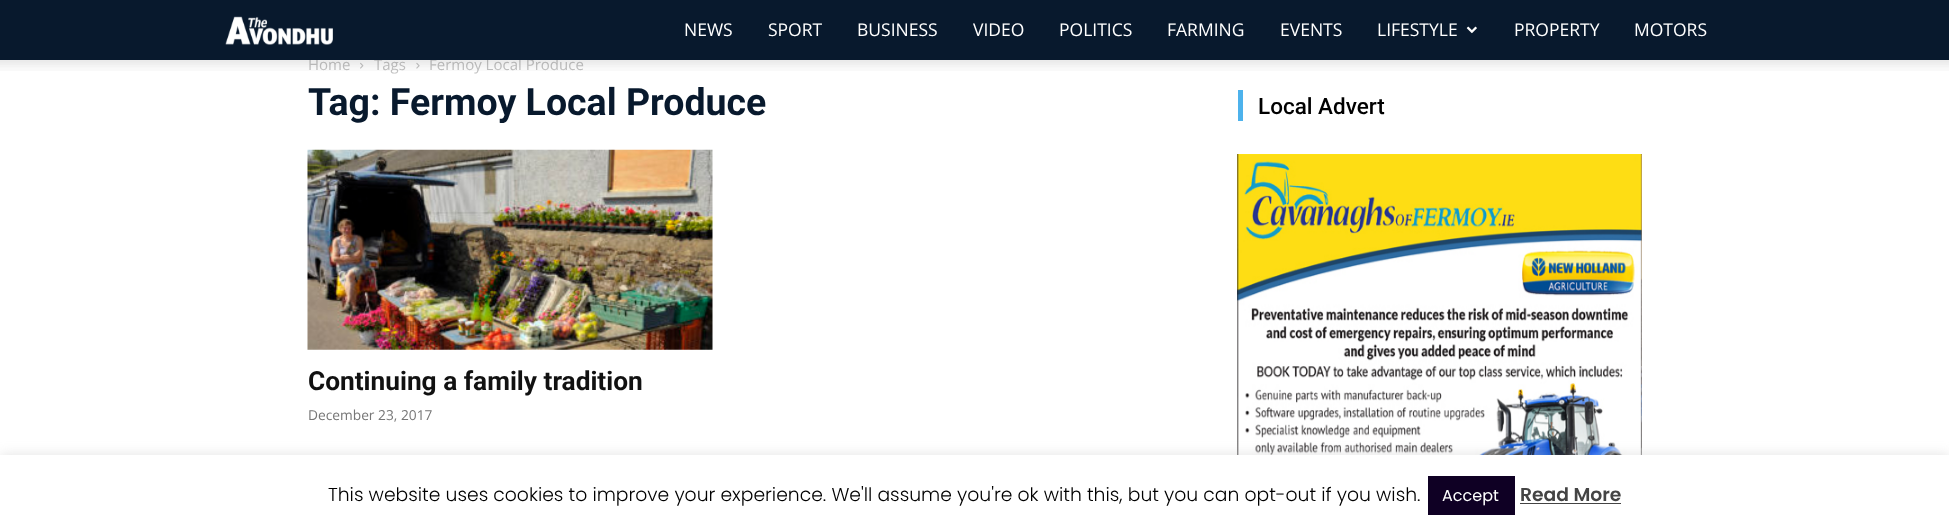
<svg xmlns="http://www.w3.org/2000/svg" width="1949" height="530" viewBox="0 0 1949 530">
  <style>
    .t1 { font: 15px Open Sans; fill: #c3c3c3; }
    .t2 { font: 17.5px Open Sans; fill: #fff; }
    .t3 { font: bold 37.5px Roboto; fill: #08192d; }
    .t4 { font: bold 26.25px Roboto; fill: #111; }
    .t5 { font: 13.75px Open Sans; fill: #767676; }
    .t6 { font: 500 22.5px Roboto; fill: #000; }
    .t7 { font: 300 18.75px Poppins; fill: #000; }
    .t8 { font: 16px Poppins; fill: #fff; }
    .t9 { font: 600 18.75px Poppins; fill: #444; }
  </style>
  <rect width="100%" height="100%" fill="#fff"/>
  <text x="308" y="70" class="t1">Home</text>
  <text x="374" y="70" class="t1">Tags</text>
  <text x="429" y="70" class="t1">Fermoy Local Produce</text>
  <rect x="0" y="0" width="1949" height="60" fill="#08192d"/>
  <image x="225" y="16" width="108" height="29" href="images/1.png"/>
  <text x="684" y="36" class="t2">NEWS</text>
  <text x="768" y="36" class="t2">SPORT</text>
  <text x="857" y="36" class="t2">BUSINESS</text>
  <text x="973" y="36" class="t2">VIDEO</text>
  <text x="1059" y="36" class="t2">POLITICS</text>
  <text x="1167" y="36" class="t2">FARMING</text>
  <text x="1280" y="36" class="t2">EVENTS</text>
  <text x="1377" y="36" class="t2">LIFESTYLE</text>
  <image x="1466" y="26" width="11" height="8" href="images/2.png"/>
  <text x="1514" y="36" class="t2">PROPERTY</text>
  <text x="1634" y="36" class="t2">MOTORS</text>
  <image x="360" y="62" width="4" height="7" href="images/4.png"/>
  <image x="416" y="62" width="4" height="7" href="images/5.png"/>
  <image x="0" y="60" width="1949" height="11" href="images/3.png"/>
  <text x="308" y="115" class="t3">Tag: Fermoy Local Produce</text>
  <image x="307" y="149" width="406" height="201" href="images/6.png"/>
  <text x="308" y="390" class="t4">Continuing a family tradition</text>
  <text x="308" y="420" class="t5">December 23, 2017</text>
  <rect x="1238" y="90" width="5" height="31" fill="#4db2ec"/>
  <text x="1258" y="114" class="t6">Local Advert</text>
  <image x="1237" y="154" width="405" height="301" href="images/7.png"/>
  <rect x="0" y="454" width="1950" height="75" fill="#acabab4d" filter="blur(6px)"/>
  <rect x="0" y="455" width="1949" height="75" fill="#fff"/>
  <text x="328" y="501" class="t7">This website uses cookies to improve your experience. We'll assume you're ok with this, but you can opt-out if you wish.</text>
  <rect x="1428" y="476" width="87" height="39" fill="#0f0024"/>
  <text x="1442" y="501" class="t8">Accept</text>
  <text x="1520" y="501" class="t9">Read More</text>
  <rect x="1520" y="503" width="101" height="1" fill="#444"/>
</svg>
